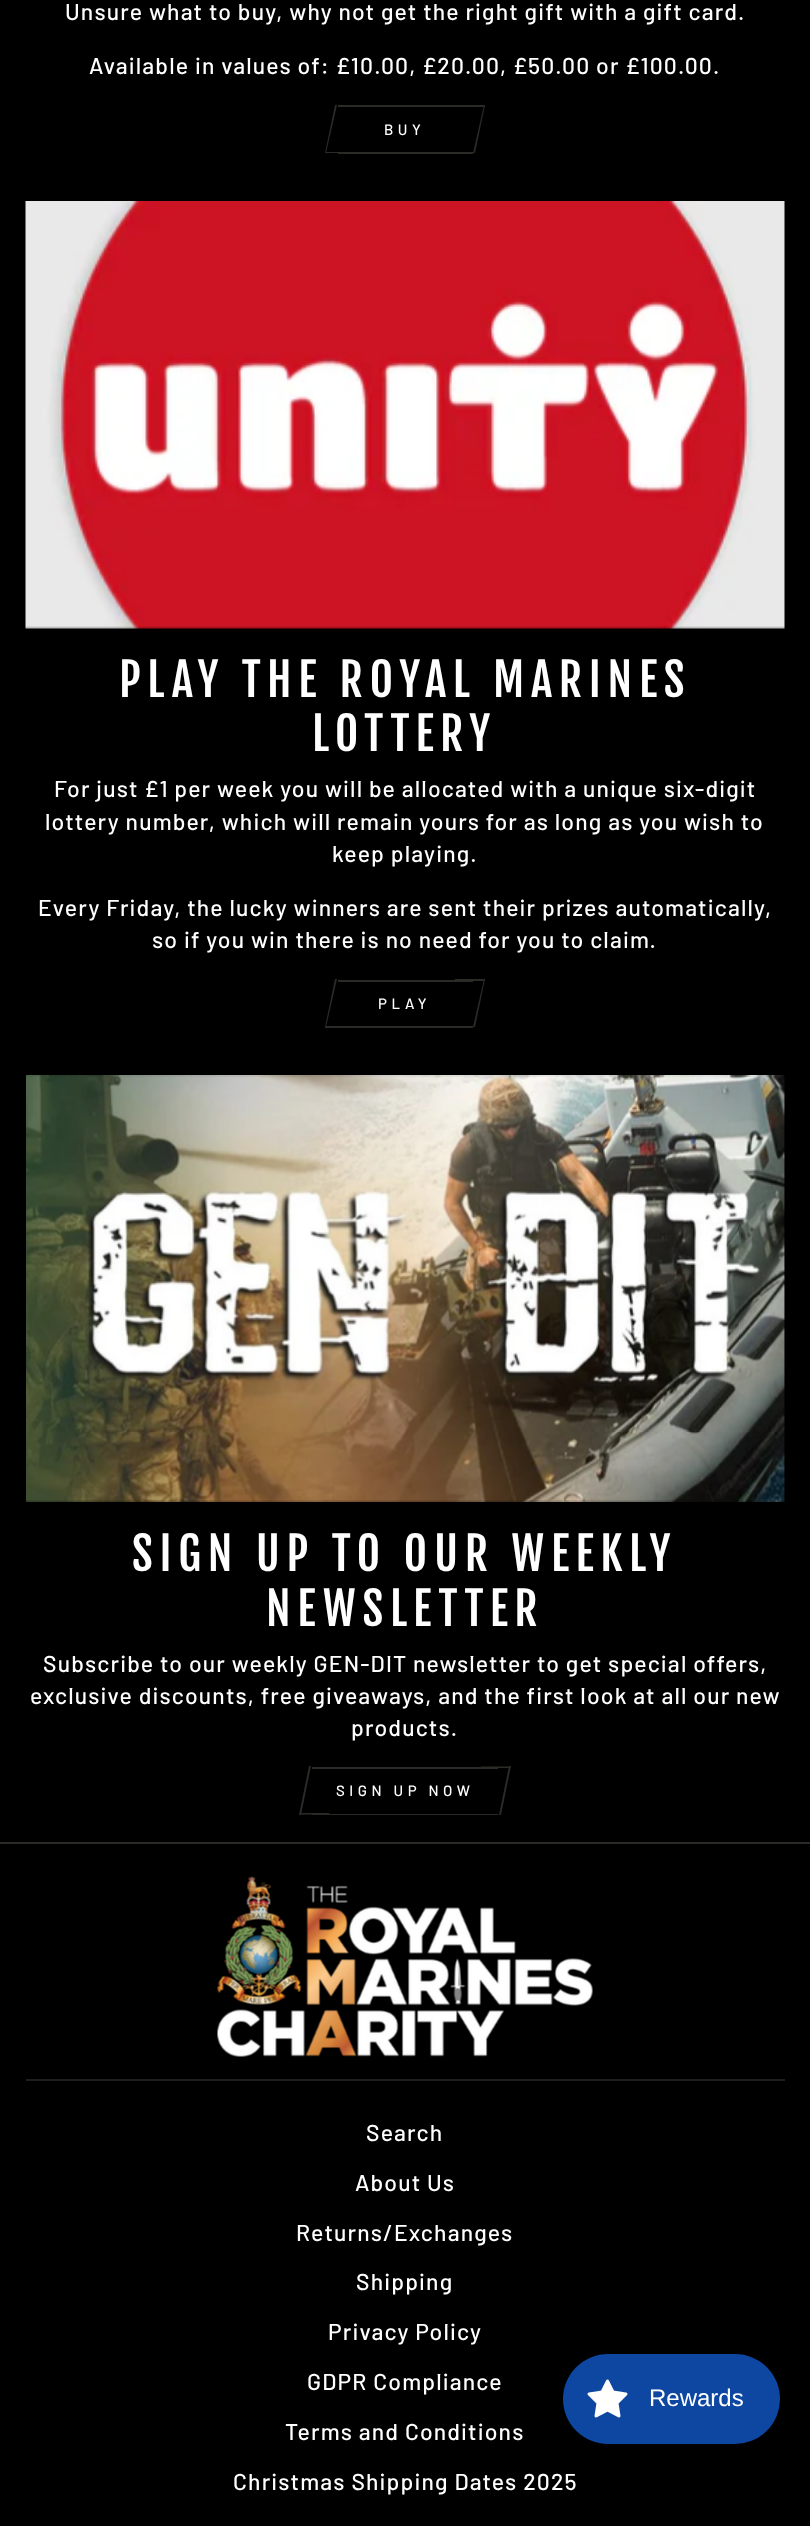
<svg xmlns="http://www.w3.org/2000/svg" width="810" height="2526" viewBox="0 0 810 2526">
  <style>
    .t1 { font: 500 22.95px Barlow; letter-spacing: 1.15px; fill: #fff; }
    .t2 { font: 500 15px Barlow; letter-spacing: 4.5px; fill: #fff; }
    .t3 { font: 45.25px Fjalla One; letter-spacing: 6.75px; fill: #fff; }
    .t4 { font: 24px Liberation Sans; fill: #fff; }
  </style>
  <rect width="100%" height="100%" fill="#000"/>
  <text x="65" y="20" class="t1">Unsure what to buy, why not get the right gift with a gift card.</text>
  <text x="89" y="74" class="t1">Available in values of: £10.00, £20.00, £50.00 or £100.00.</text>
  <rect x="338" y="105" width="147" height="2" fill="#2b2a27"/>
  <rect x="338" y="152" width="135" height="2" fill="#2b2a27"/>
  <rect x="325" y="152" width="13" height="1" fill="#2b2a27"/>
  <path d="M335 105H337L326 153H325Z" fill="#2b2a27"/>
  <text x="384" y="135" class="t2">BUY</text>
  <path d="M484 105H485L475 153H473Z" fill="#2b2a27"/>
  <image x="25" y="201" width="760" height="428" href="images/1.png"/>
  <text x="119" y="697" class="t3">PLAY THE ROYAL MARINES</text>
  <text x="312" y="751" class="t3">LOTTERY</text>
  <text x="54" y="797" class="t1">For just £1 per week you will be allocated with a unique six-digit</text>
  <text x="45" y="830" class="t1">lottery number, which will remain yours for as long as you wish to</text>
  <text x="332" y="862" class="t1">keep playing.</text>
  <text x="38" y="916" class="t1">Every Friday, the lucky winners are sent their prizes automatically,</text>
  <text x="152" y="948" class="t1">so if you win there is no need for you to claim.</text>
  <rect x="338" y="980" width="135" height="2" fill="#2b2a27"/>
  <rect x="325" y="1026" width="148" height="2" fill="#2b2a27"/>
  <path d="M335 979H337L326 1027H325Z" fill="#2b2a27"/>
  <text x="378" y="1009" class="t2">PLAY</text>
  <rect x="455" y="979" width="30" height="2" fill="#2b2a27"/>
  <path d="M484 979H485L475 1027H473Z" fill="#2b2a27"/>
  <image x="26" y="1075" width="759" height="427" href="images/2.png"/>
  <text x="132" y="1571" class="t3">SIGN UP TO OUR WEEKLY</text>
  <text x="266" y="1626" class="t3">NEWSLETTER</text>
  <text x="43" y="1672" class="t1">Subscribe to our weekly GEN-DIT newsletter to get special offers,</text>
  <text x="30" y="1704" class="t1">exclusive discounts, free giveaways, and the first look at all our new</text>
  <text x="351" y="1736" class="t1">products.</text>
  <rect x="312" y="1767" width="186" height="2" fill="#2b2a27"/>
  <rect x="312" y="1814" width="186" height="1" fill="#2b2a27"/>
  <path d="M299.5 1813H329.5L329 1814.5H299Z" fill="#2b2a27"/>
  <path d="M309 1766H311L301 1815H299Z" fill="#2b2a27"/>
  <text x="336" y="1796" class="t2">SIGN UP NOW</text>
  <path d="M481 1766.5H511L510.5 1768H480.5Z" fill="#2b2a27"/>
  <path d="M509 1766H511L501 1815H499Z" fill="#2b2a27"/>
  <rect x="0" y="1842" width="810" height="2" fill="#2b2a27"/>
  <image x="217" y="1876" width="376" height="181" href="images/3.png"/>
  <rect x="26" y="2079" width="759" height="2" fill="#1f1f1f"/>
  <text x="366" y="2141" class="t1">Search</text>
  <text x="355" y="2191" class="t1">About Us</text>
  <text x="296" y="2241" class="t1">Returns/Exchanges</text>
  <text x="356" y="2290" class="t1">Shipping</text>
  <text x="328" y="2340" class="t1">Privacy Policy</text>
  <text x="307" y="2390" class="t1">GDPR Compliance</text>
  <text x="285" y="2440" class="t1">Terms and Conditions</text>
  <text x="233" y="2490" class="t1">Christmas Shipping Dates 2025</text>
  <rect x="563" y="2354" width="217" height="90" rx="45" fill="#0d47a1"/>
  <image x="587" y="2379" width="41" height="39" href="images/4.png"/>
  <text x="649" y="2406" class="t4">Rewards</text>
</svg>
